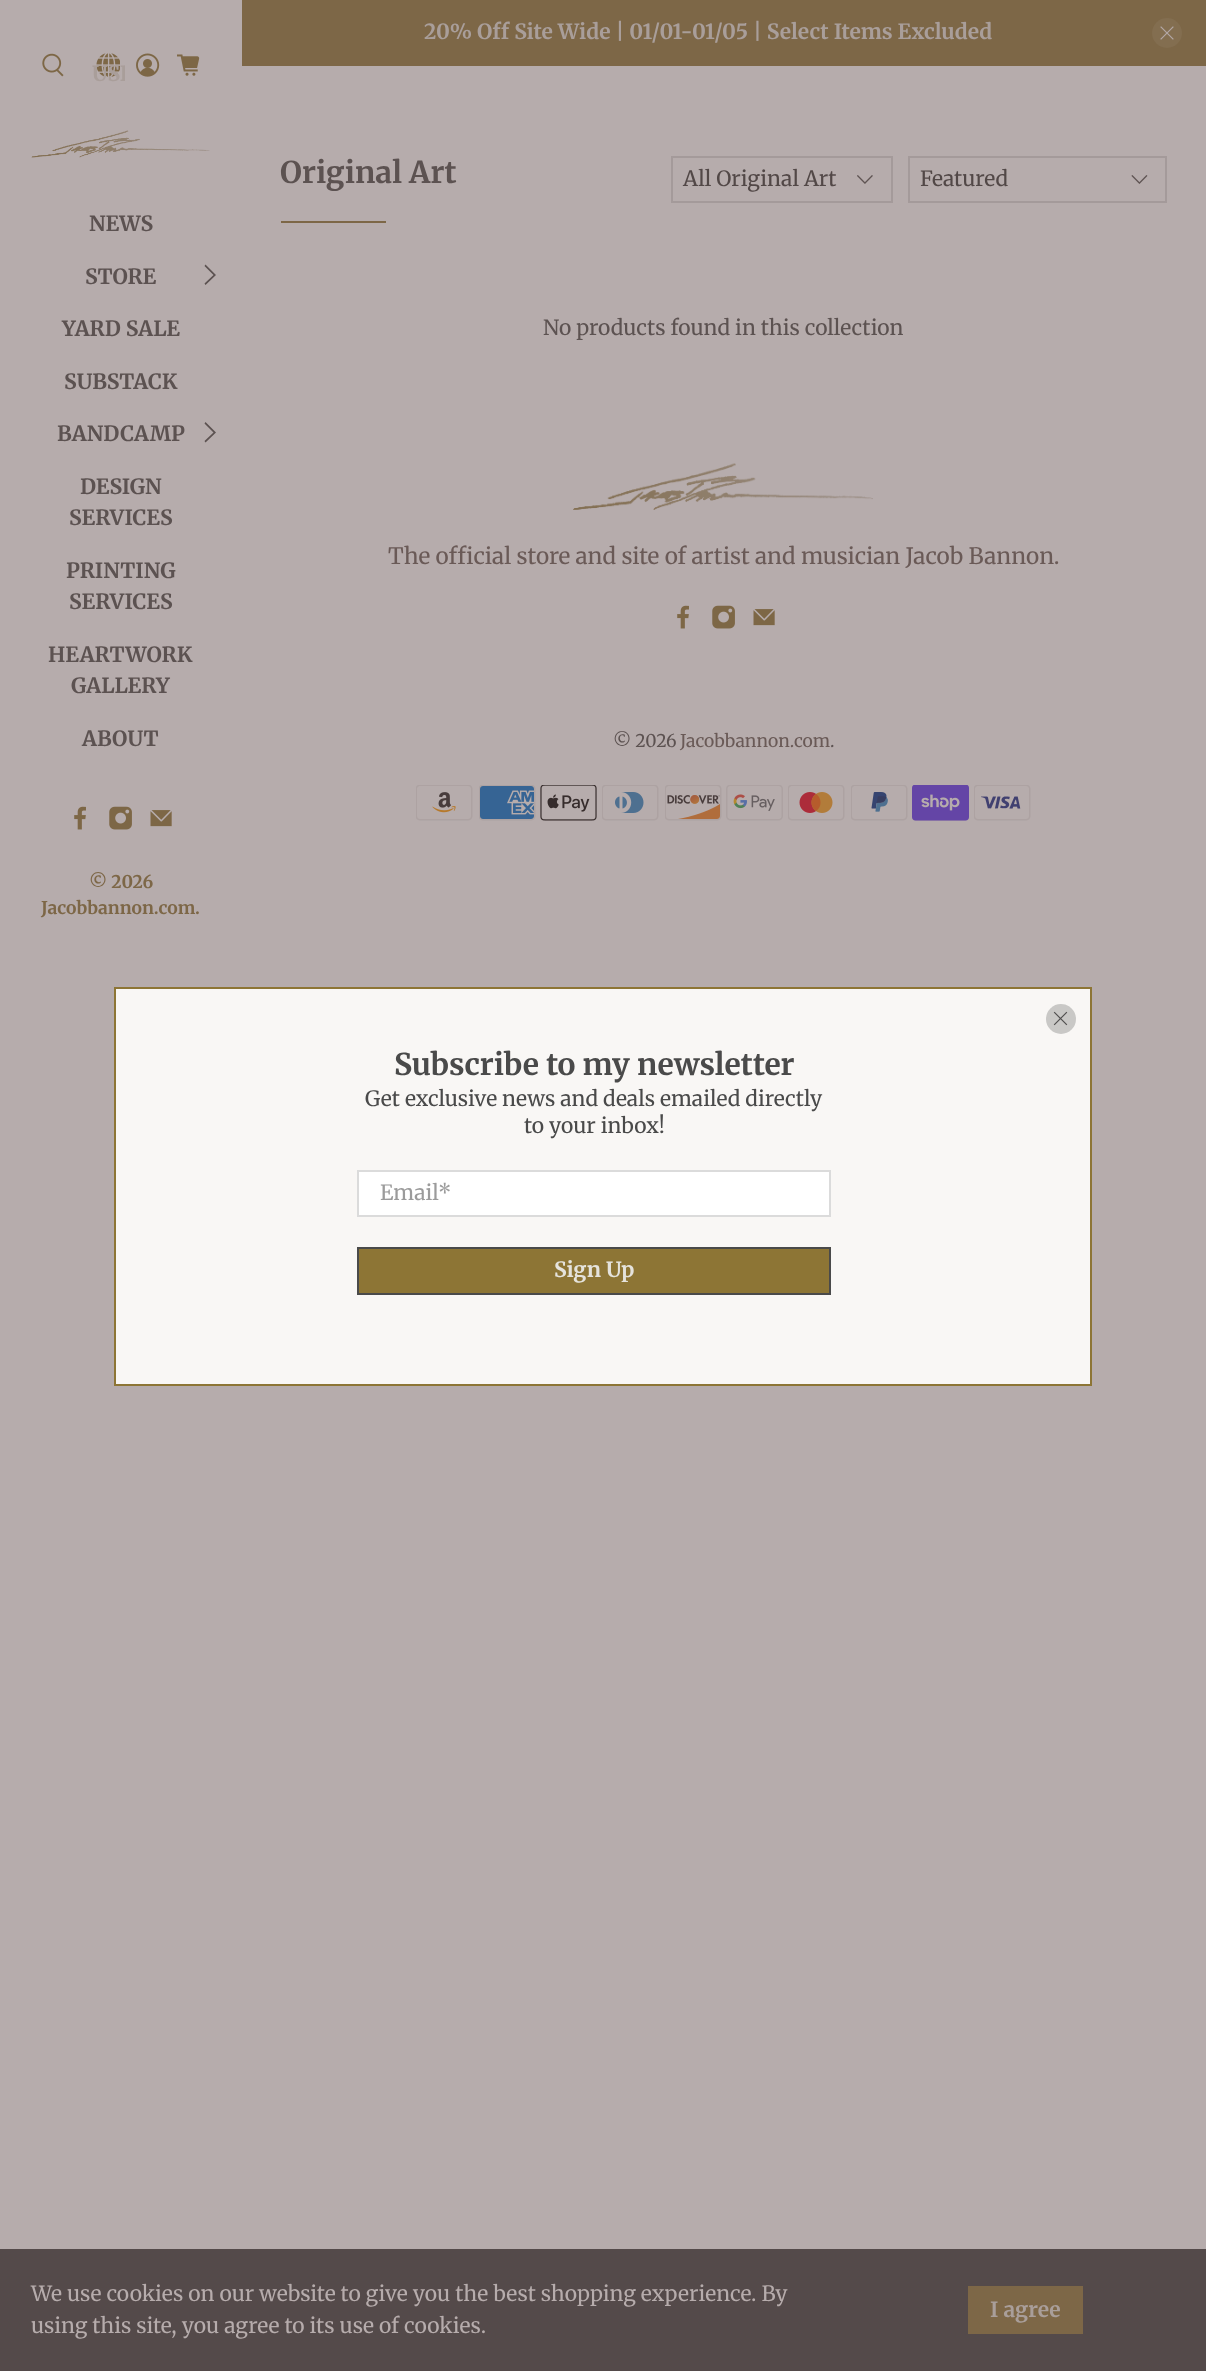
<svg xmlns="http://www.w3.org/2000/svg" width="1206" height="2371" viewBox="0 0 1206 2371">
  <style>
    .t1 { font: bold 21px Merriweather; fill: #a99e9a; }
    .t2 { font: bold 21px Merriweather; fill: #5c5251; }
    .t3 { font: bold 17.5px Merriweather; fill: #7d6747; }
    .t4 { font: bold 30px Merriweather; fill: #5c5251; }
    .t5 { font: 21px Merriweather; fill: #524847; }
    .t6 { font: 21px Merriweather; fill: #5c5251; }
    .t7 { font: 22.5px Merriweather; fill: #6a5a57; }
    .t8 { font: 17.5px Merriweather; fill: #5c5251; }
    .t9 { font: 17.5px Merriweather; fill: #6a5a57; }
    .t10 { font: bold 30px Merriweather; fill: #4a4a4a; }
    .t11 { font: 21px Merriweather; fill: #4a4a4a; }
    .t12 { font: 21px Merriweather; fill: #9b9b9b; }
    .t13 { font: bold 21px Merriweather; fill: #e5e3dc; }
    .t14 { font: 21px Merriweather; fill: #b6acac; }
  </style>
  <defs>
    <clipPath id="clip1"><rect x="92" y="59" width="33" height="31"/></clipPath>
  </defs>
  <rect width="100%" height="100%" fill="#b6acac"/>
  <rect x="242" y="0" width="964" height="66" fill="#7d6747"/>
  <text x="424" y="39" class="t1">20% Off Site Wide | 01/01-01/05 | Select Items Excluded</text>
  <circle cx="1167" cy="33" r="15" fill="#836e50"/>
  <image x="1160" y="26" width="14" height="14" href="images/1.png"/>
  <image x="42" y="53" width="22" height="24" href="images/2.png"/>
  <image x="96" y="53" width="24" height="24" href="images/3.png"/>
  <g clip-path="url(#clip1)">
    <text x="92" y="81" class="t1">USD</text>
  </g>
  <image x="136" y="53" width="24" height="24" href="images/4.png"/>
  <image x="177" y="54" width="23" height="22" href="images/5.png"/>
  <image x="31" y="130" width="179" height="28" href="images/6.png"/>
  <text x="89" y="231" class="t2">NEWS</text>
  <text x="85" y="284" class="t2">STORE</text>
  <path d="M216 275L205.5 285L204.5 283.5L213.5 275L204.5 266L205.5 264.5Z" fill="#5c5251"/>
  <text x="62" y="336" class="t2">YARD SALE</text>
  <text x="64" y="389" class="t2">SUBSTACK</text>
  <text x="57" y="441" class="t2">BANDCAMP</text>
  <path d="M216 432.5L205.5 442.5L204.5 441L213.5 432.5L204.5 423.5L205.5 422Z" fill="#5c5251"/>
  <text x="80" y="494" class="t2">DESIGN</text>
  <text x="69" y="525" class="t2">SERVICES</text>
  <text x="66" y="578" class="t2">PRINTING</text>
  <text x="69" y="609" class="t2">SERVICES</text>
  <text x="48" y="662" class="t2">HEARTWORK</text>
  <text x="71" y="693" class="t2">GALLERY</text>
  <text x="82" y="746" class="t2">ABOUT</text>
  <image x="74" y="806" width="12" height="24" href="images/7.png"/>
  <image x="109" y="806" width="23" height="24" href="images/8.png"/>
  <image x="150" y="810" width="22" height="17" href="images/9.png"/>
  <text x="89" y="888" class="t3">© 2026</text>
  <text x="41" y="914" class="t3">Jacobbannon.com</text>
  <text x="195" y="914" class="t3">.</text>
  <text x="280" y="183" class="t4">Original Art</text>
  <rect x="281" y="221" width="105" height="2" fill="#7d6747"/>
  <rect x="672" y="157" width="220" height="45" fill="none" stroke="#a49a9a" stroke-width="2"/>
  <text x="683" y="186" class="t5">All Original Art</text>
  <image x="857" y="175" width="16" height="9" href="images/10.png"/>
  <rect x="909" y="157" width="257" height="45" fill="none" stroke="#a49a9a" stroke-width="2"/>
  <text x="920" y="186" class="t5">Featured</text>
  <image x="1131" y="175" width="17" height="9" href="images/11.png"/>
  <text x="543" y="335" class="t6">No products found in this collection</text>
  <image x="573" y="463" width="300" height="47" href="images/12.png"/>
  <text x="388" y="564" class="t7">The official store and site of artist and musician Jacob Bannon.</text>
  <image x="677" y="605" width="12" height="24" href="images/7.png"/>
  <image x="712" y="605" width="23" height="24" href="images/8.png"/>
  <image x="753" y="609" width="22" height="17" href="images/9.png"/>
  <text x="613" y="747" class="t8">© 2026</text>
  <text x="680" y="747" class="t9">Jacobbannon.com</text>
  <text x="830" y="747" class="t8">.</text>
  <image x="416" y="785" width="57" height="36" href="images/13.png"/>
  <image x="479" y="785" width="57" height="36" href="images/14.png"/>
  <image x="540" y="785" width="57" height="36" href="images/15.png"/>
  <image x="602" y="785" width="57" height="36" href="images/16.png"/>
  <image x="665" y="785" width="57" height="36" href="images/17.png"/>
  <image x="726" y="785" width="57" height="36" href="images/18.png"/>
  <image x="788" y="785" width="57" height="36" href="images/19.png"/>
  <image x="851" y="785" width="57" height="36" href="images/20.png"/>
  <image x="912" y="785" width="57" height="36" href="images/21.png"/>
  <image x="974" y="785" width="57" height="36" href="images/22.png"/>
  <rect x="115" y="988" width="976" height="397" fill="#f9f7f5" stroke="#8d7535" stroke-width="2"/>
  <circle cx="1061" cy="1019" r="15" fill="#c9c8c6"/>
  <image x="1053" y="1011" width="15" height="15" href="images/23.png"/>
  <text x="394" y="1075" class="t10">Subscribe to my newsletter</text>
  <text x="365" y="1106" class="t11">Get exclusive news and deals emailed directly</text>
  <text x="524" y="1133" class="t11">to your inbox!</text>
  <rect x="358" y="1171" width="472" height="45" fill="#fff" stroke="#dbdbdb" stroke-width="2"/>
  <text x="380" y="1200" class="t12">Email*</text>
  <rect x="358" y="1248" width="472" height="46" fill="#8d7535" stroke="#4a4a4a" stroke-width="2"/>
  <text x="554" y="1277" class="t13">Sign Up</text>
  <rect x="0" y="2249" width="1206" height="122" fill="#544a4a"/>
  <text x="31" y="2301" class="t14">We use cookies on our website to give you the best shopping experience. By</text>
  <text x="31" y="2333" class="t14">using this site, you agree to its use of cookies.</text>
  <rect x="968" y="2286" width="115" height="48" fill="#7d6747"/>
  <text x="990" y="2317" class="t1">I agree</text>
</svg>
